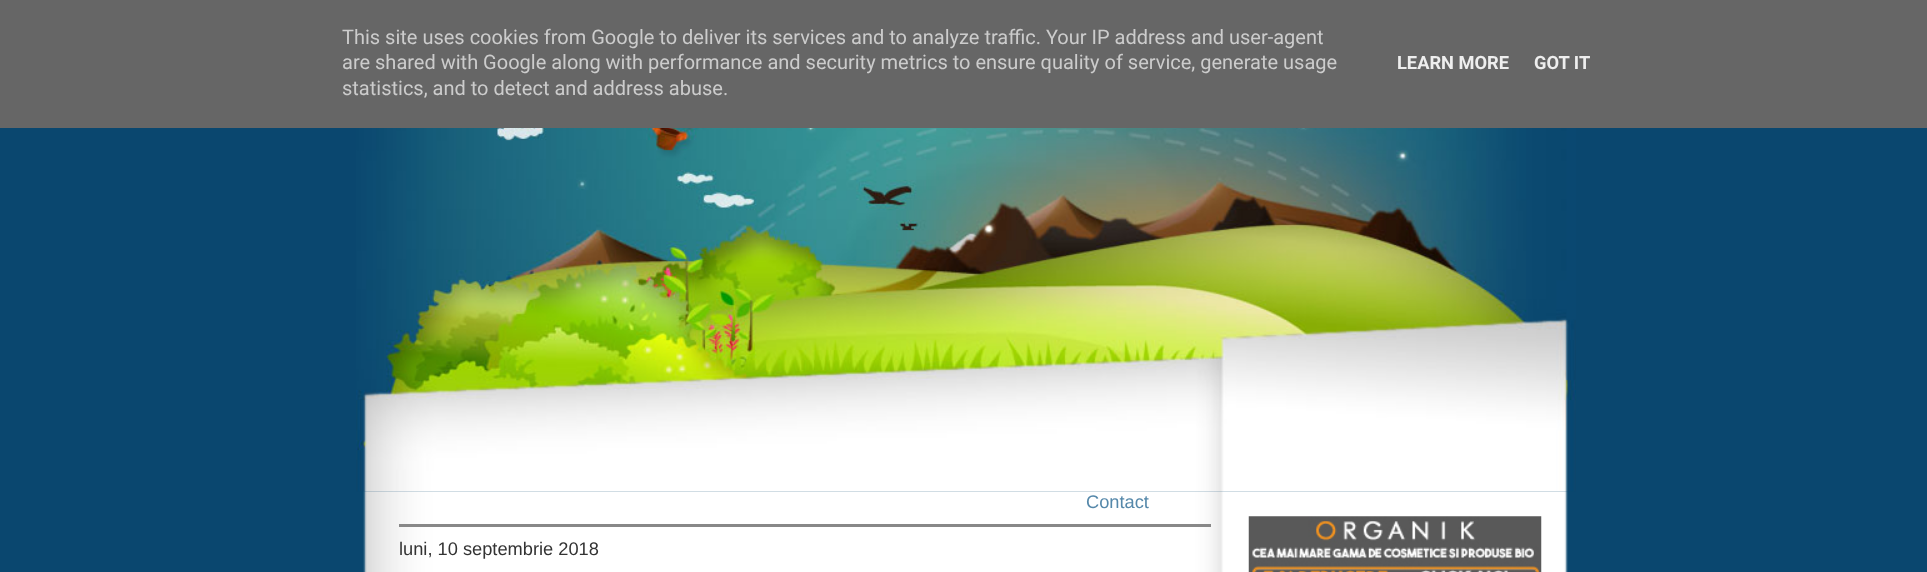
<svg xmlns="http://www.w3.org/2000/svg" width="1927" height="572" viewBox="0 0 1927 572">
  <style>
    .t1 { font: 20px Roboto; fill: #ccc; }
    .t2 { font: bold 18.25px Roboto; fill: #eee; }
    .t3 { font: 18.25px Liberation Sans; fill: #58a; }
    .t4 { font: 18.25px Liberation Sans; fill: #333; }
  </style>
  <rect width="100%" height="100%" fill="#0a476f"/>
  <rect x="0" y="0" width="1927" height="128" fill="#666"/>
  <text x="342" y="44" class="t1">This site uses cookies from Google to deliver its services and to analyze traffic. Your IP address and user-agent</text>
  <text x="342" y="69" class="t1">are shared with Google along with performance and security metrics to ensure quality of service, generate usage</text>
  <text x="342" y="95" class="t1">statistics, and to detect and address abuse.</text>
  <text x="1397" y="69" class="t2">LEARN MORE</text>
  <text x="1534" y="69" class="t2">GOT IT</text>
  <image x="356" y="128" width="1220" height="364" href="images/1.png"/>
  <image x="363" y="491" width="1205" height="81" href="images/2.png"/>
  <rect x="399" y="524" width="812" height="3" fill="#888"/>
  <text x="1086" y="508" class="t3">Contact</text>
  <text x="399" y="555" class="t4">luni, 10 septembrie 2018</text>
  <image x="1248" y="516" width="294" height="56" href="images/3.png"/>
</svg>
